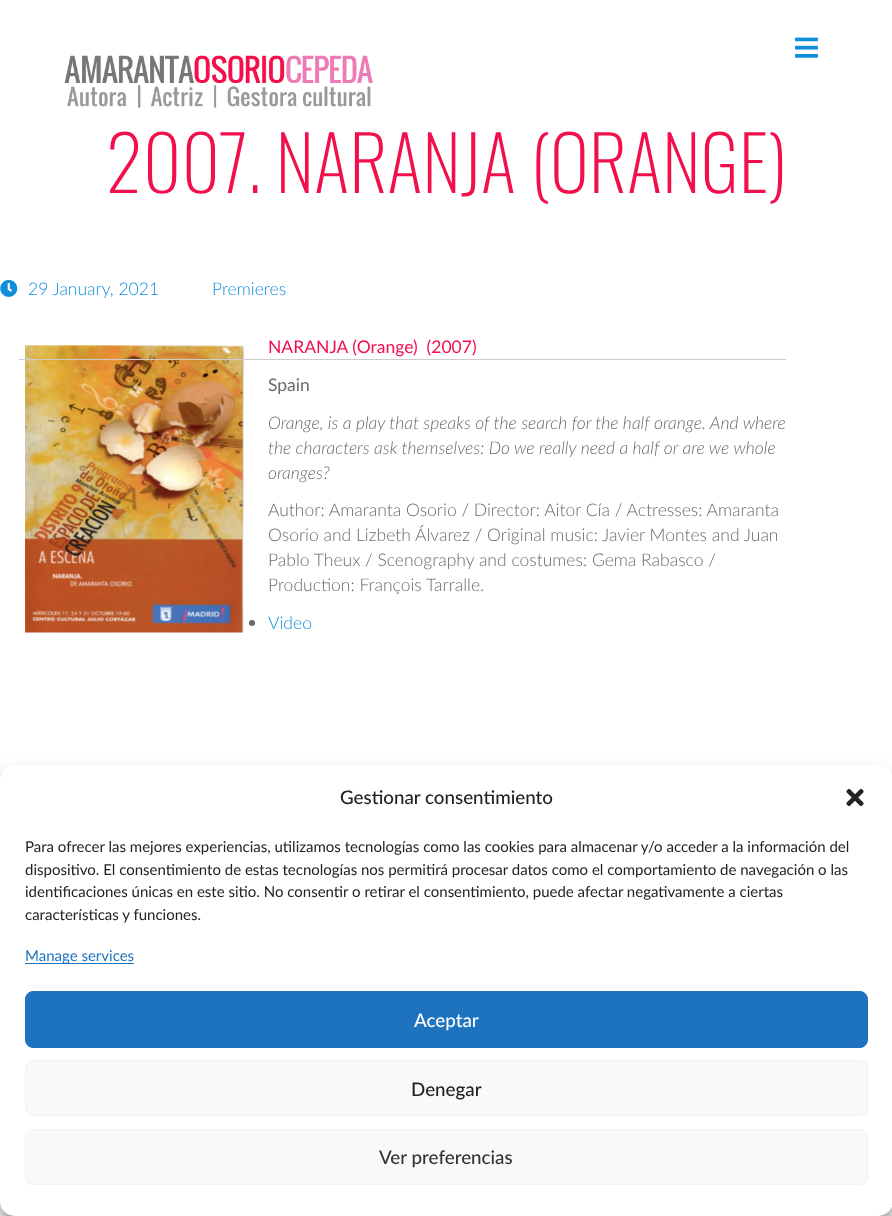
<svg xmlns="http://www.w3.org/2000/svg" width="892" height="1216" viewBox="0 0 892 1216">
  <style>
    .t1 { font: 200 75px Oswald; fill: #f10f4c; }
    .t2 { font: 300 17.5px Lato; fill: #0e8edb; }
    .t3 { font: 17.5px Lato; fill: #f10f4c; }
    .t4 { font: 17.5px Lato; fill: #6a6969; }
    .t5 { font: italic 300 17.5px Lato; fill: #6a6969; }
    .t6 { font: 300 17.5px Lato; fill: #6a6969; }
    .t7 { font: 500 18.75px Lato; fill: #222; }
    .t8 { font: 15px Lato; fill: #222; }
    .t9 { font: 15px Lato; fill: #1e73be; }
    .t10 { font: 500 18.75px Lato; fill: #fff; }
    .t11 { font: 500 18.75px Lato; fill: #333; }
  </style>
  <rect width="100%" height="100%" fill="#fff"/>
  <image x="795" y="37" width="23" height="21" href="images/1.png"/>
  <image x="64" y="55" width="309" height="53" href="images/2.png"/>
  <text x="106" y="193" class="t1">2007. NARANJA (ORANGE)</text>
  <image x="0" y="280" width="18" height="17" href="images/3.png"/>
  <text x="28" y="295" class="t2">29 January, 2021</text>
  <text x="212" y="295" class="t2">Premieres</text>
  <image x="25" y="345" width="219" height="288" href="images/4.png"/>
  <rect x="19" y="359" width="767" height="1" fill="#ccc"/>
  <text x="268" y="353" class="t3" xml:space="preserve">NARANJA (Orange)  (2007)</text>
  <text x="268" y="391" class="t4">Spain</text>
  <text x="268" y="429" class="t5">Orange, is a play that speaks of the search for the half orange. And where</text>
  <text x="268" y="454" class="t5">the characters ask themselves: Do we really need a half or are we whole</text>
  <text x="268" y="479" class="t5">oranges?</text>
  <text x="268" y="516" class="t6">Author: Amaranta Osorio / Director: Aitor Cía / Actresses: Amaranta</text>
  <text x="268" y="541" class="t6">Osorio and Lizbeth Álvarez / Original music: Javier Montes and Juan</text>
  <text x="268" y="566" class="t6">Pablo Theux / Scenography and costumes: Gema Rabasco /</text>
  <text x="268" y="591" class="t6">Production: François Tarralle.</text>
  <circle cx="252" cy="623" r="3" fill="#6a6969"/>
  <text x="268" y="629" class="t2">Video</text>
  <rect x="0" y="773" width="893" height="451" rx="15" fill="#0000003b" filter="blur(4px)"/>
  <rect x="0" y="778" width="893" height="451" rx="15" fill="#00000030" filter="blur(12.5px)"/>
  <rect x="0" y="765" width="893" height="451" rx="15" fill="#fff"/>
  <text x="340" y="804" class="t7">Gestionar consentimiento</text>
  <image x="846" y="788" width="18" height="18" href="images/5.png"/>
  <text x="25" y="852" class="t8">Para ofrecer las mejores experiencias, utilizamos tecnologías como las cookies para almacenar y/o acceder a la información del</text>
  <text x="25" y="875" class="t8">dispositivo. El consentimiento de estas tecnologías nos permitirá procesar datos como el comportamiento de navegación o las</text>
  <text x="25" y="897" class="t8">identificaciones únicas en este sitio. No consentir o retirar el consentimiento, puede afectar negativamente a ciertas</text>
  <text x="25" y="920" class="t8">características y funciones.</text>
  <rect x="25" y="963" width="109" height="1" fill="#1e73be"/>
  <text x="25" y="961" class="t9">Manage services</text>
  <rect x="25.5" y="991.5" width="842" height="56" rx="7.5" fill="#1e73be" stroke="#1e73be"/>
  <text x="414" y="1027" class="t10">Aceptar</text>
  <rect x="25.5" y="1060.5" width="842" height="55" rx="7.5" fill="#f9f9f9" stroke="#f2f2f2"/>
  <text x="411" y="1096" class="t7">Denegar</text>
  <rect x="25.5" y="1129.5" width="842" height="55" rx="7.5" fill="#f9f9f9" stroke="#f2f2f2"/>
  <text x="379" y="1164" class="t11">Ver preferencias</text>
</svg>
